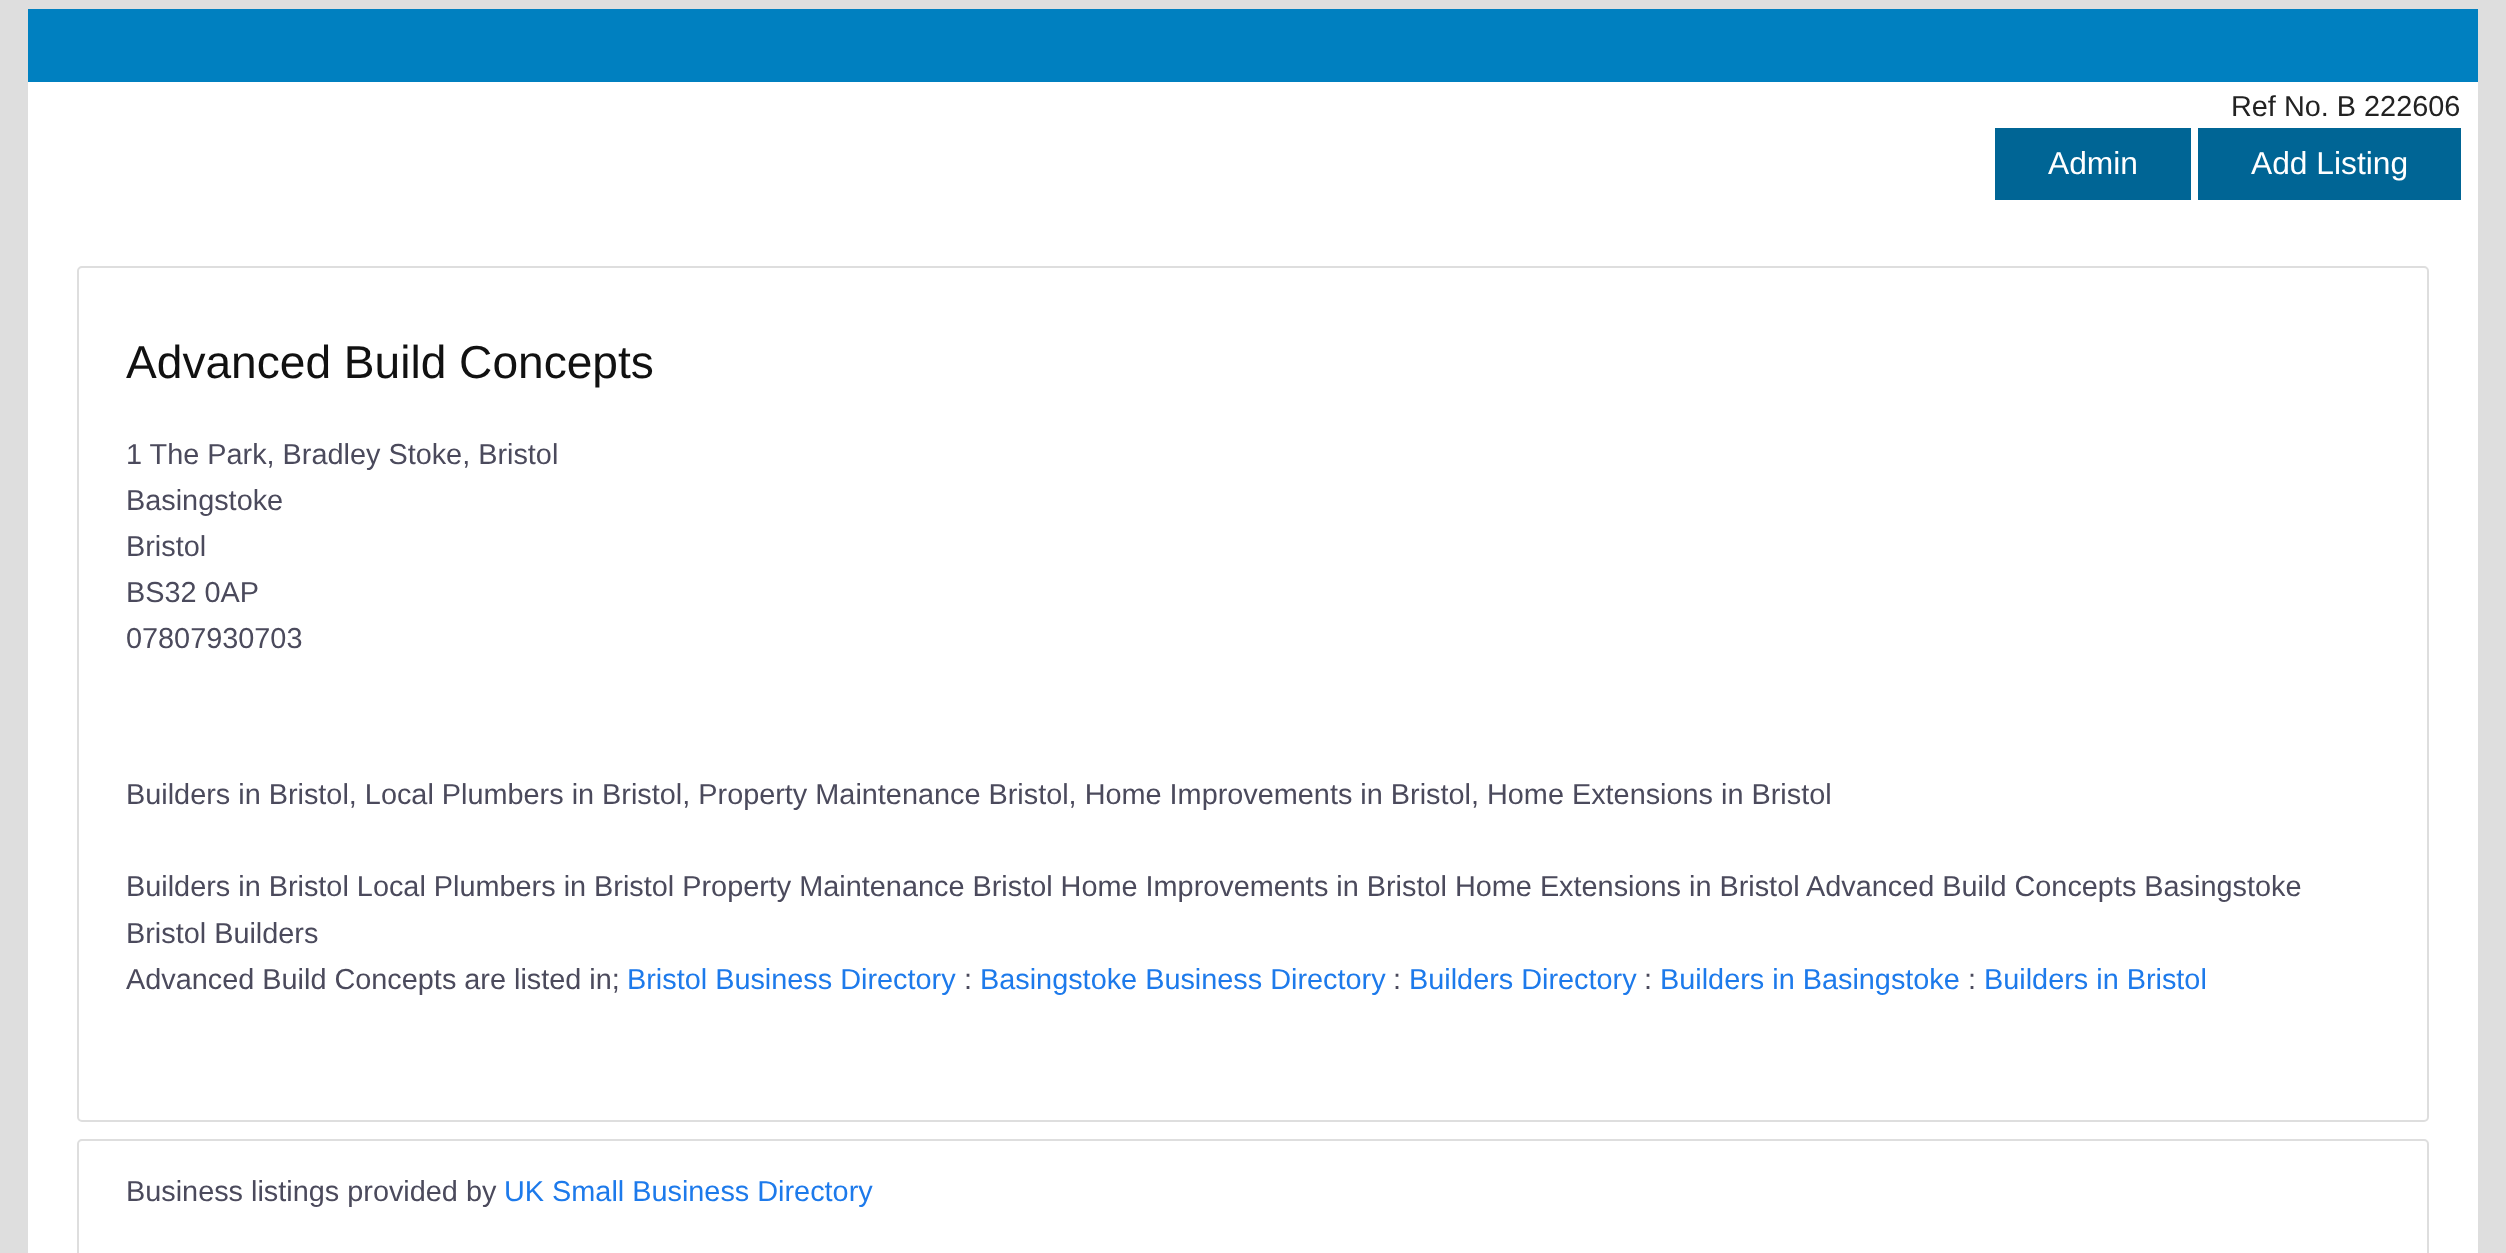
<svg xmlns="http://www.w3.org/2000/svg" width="2506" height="1253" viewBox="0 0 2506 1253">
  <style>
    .t1 { font: 28.85px Liberation Sans; fill: #222; }
    .t2 { font: 31.75px Liberation Sans; fill: #fff; }
    .t3 { font: 46.1px Liberation Sans; fill: #111; }
    .t4 { font: 28.85px Liberation Sans; fill: #4b4a5c; }
    .t5 { font: 28.85px Liberation Sans; fill: #1d7aeb; }
  </style>
  <rect width="100%" height="100%" fill="#dedede"/>
  <rect x="28" y="82" width="2450" height="1171" fill="#fff"/>
  <rect x="28" y="9" width="2450" height="73" fill="#0080c0"/>
  <text x="2231" y="116" class="t1">Ref No. B 222606</text>
  <rect x="1995" y="128" width="196" height="72" fill="#006595"/>
  <text x="2048" y="174" class="t2">Admin</text>
  <rect x="2198" y="128" width="263" height="72" fill="#006595"/>
  <text x="2251" y="174" class="t2">Add Listing</text>
  <rect x="78" y="267" width="2350" height="854" rx="4" fill="none" stroke="#dedede" stroke-width="2"/>
  <text x="126" y="378" class="t3">Advanced Build Concepts</text>
  <text x="126" y="464" class="t4">1 The Park, Bradley Stoke, Bristol</text>
  <text x="126" y="510" class="t4">Basingstoke</text>
  <text x="126" y="556" class="t4">Bristol</text>
  <text x="126" y="602" class="t4">BS32 0AP</text>
  <text x="126" y="648" class="t4">07807930703</text>
  <text x="126" y="804" class="t4">Builders in Bristol, Local Plumbers in Bristol, Property Maintenance Bristol, Home Improvements in Bristol, Home Extensions in Bristol</text>
  <text x="126" y="896" class="t4">Builders in Bristol Local Plumbers in Bristol Property Maintenance Bristol Home Improvements in Bristol Home Extensions in Bristol Advanced Build Concepts Basingstoke</text>
  <text x="126" y="943" class="t4">Bristol Builders</text>
  <text x="126" y="989" class="t4">Advanced Build Concepts are listed in;</text>
  <text x="627" y="989" class="t5">Bristol Business Directory</text>
  <text x="964" y="989" class="t4">:</text>
  <text x="980" y="989" class="t5">Basingstoke Business Directory</text>
  <text x="1393" y="989" class="t4">:</text>
  <text x="1409" y="989" class="t5">Builders Directory</text>
  <text x="1644" y="989" class="t4">:</text>
  <text x="1660" y="989" class="t5">Builders in Basingstoke</text>
  <text x="1968" y="989" class="t4">:</text>
  <text x="1984" y="989" class="t5">Builders in Bristol</text>
  <rect x="78" y="1140" width="2350" height="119" rx="4" fill="none" stroke="#dedede" stroke-width="2"/>
  <text x="126" y="1201" class="t4">Business listings provided by</text>
  <text x="504" y="1201" class="t5">UK Small Business Directory</text>
</svg>
